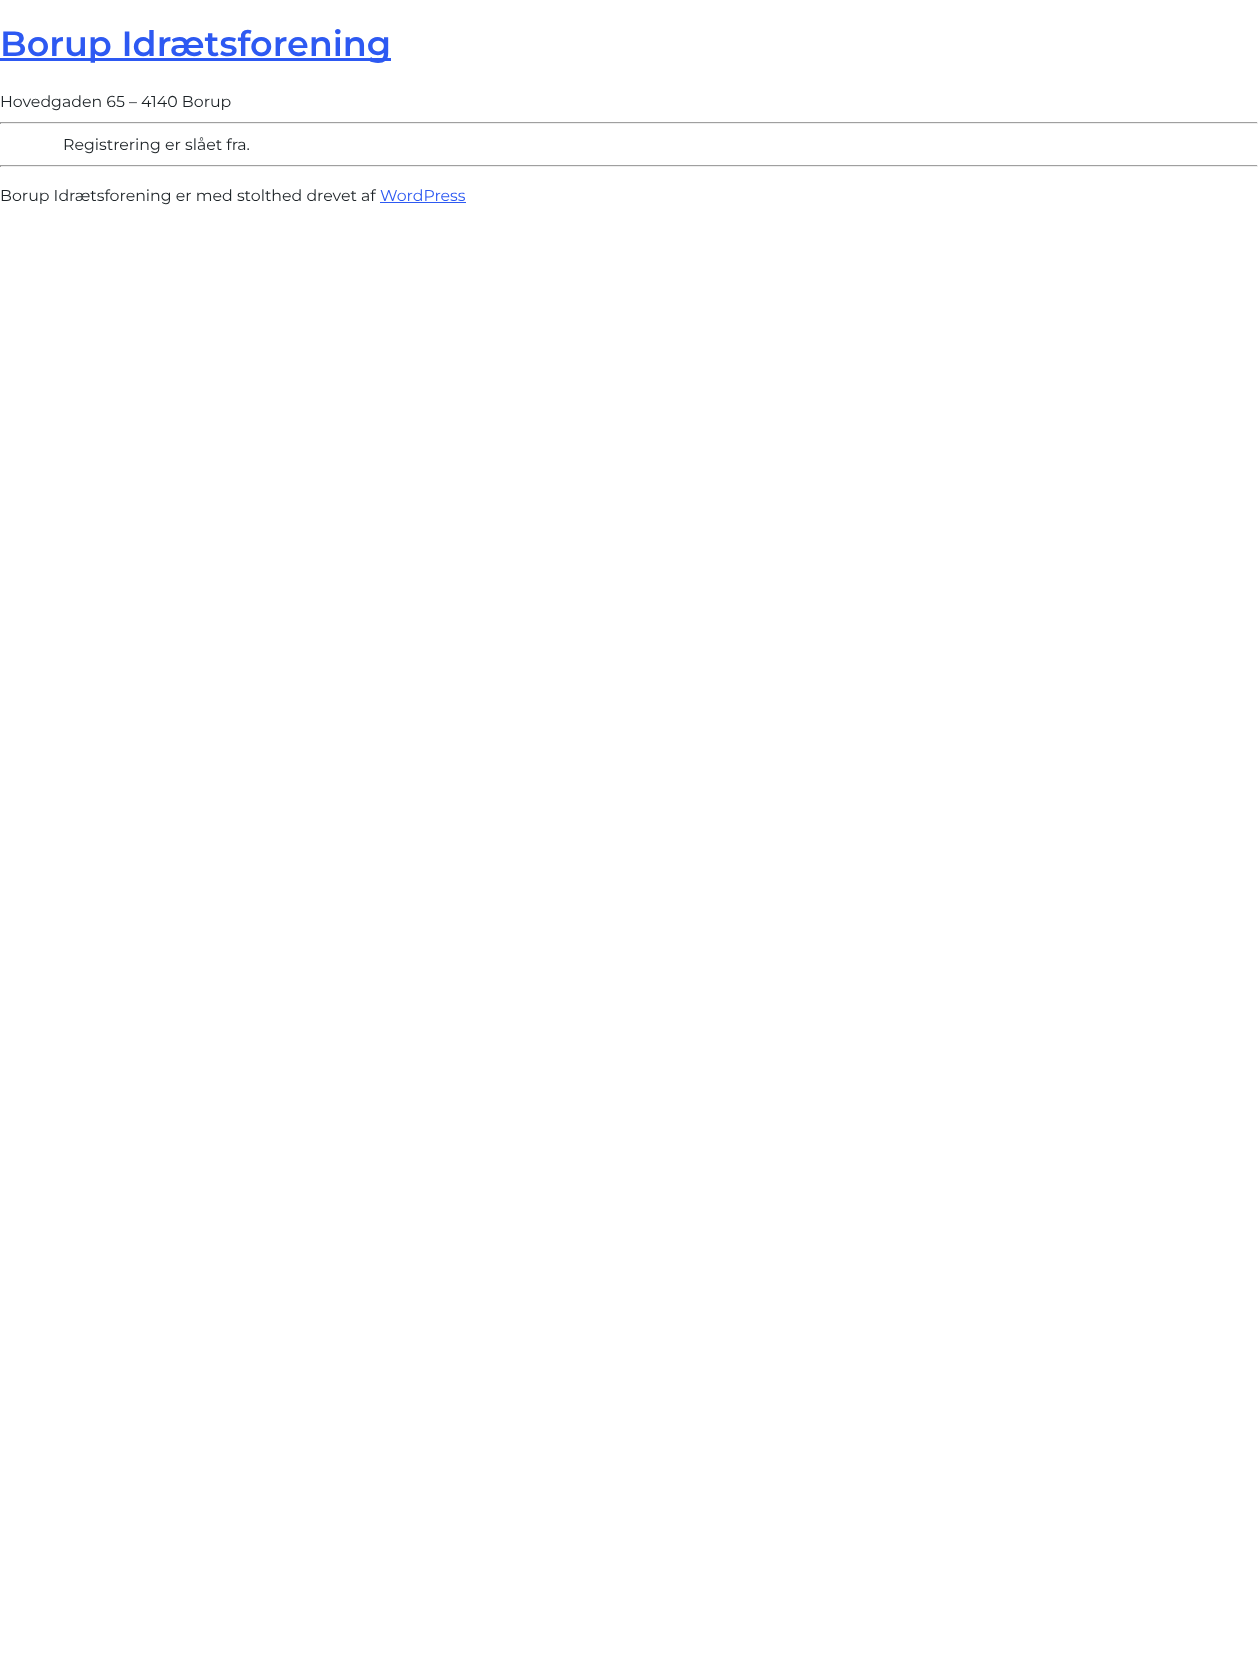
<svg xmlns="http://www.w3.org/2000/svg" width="1258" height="1671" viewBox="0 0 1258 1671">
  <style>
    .t1 { font: 600 35px Montserrat; fill: #2d59f2; }
    .t2 { font: 15.8px Montserrat; fill: #1d2327; }
    .t3 { font: 15.8px Montserrat; fill: #2d59f2; }
  </style>
  <rect width="100%" height="100%" fill="#fff"/>
  <rect x="0" y="58" width="391" height="3" fill="#2d59f2"/>
  <text x="0" y="56" class="t1">Borup Idrætsforening</text>
  <text x="0" y="107" class="t2">Hovedgaden 65 – 4140 Borup</text>
  <rect x="0" y="122" width="1258" height="1" fill="#9f9f9f"/>
  <rect x="1257" y="122" width="1" height="2" fill="#eee"/>
  <rect x="0" y="123" width="1258" height="1" fill="#eee"/>
  <rect x="0" y="122" width="1" height="2" fill="#9f9f9f"/>
  <text x="63" y="150" class="t2">Registrering er slået fra.</text>
  <rect x="0" y="165" width="1258" height="1" fill="#9f9f9f"/>
  <rect x="1257" y="165" width="1" height="2" fill="#eee"/>
  <rect x="0" y="166" width="1258" height="1" fill="#eee"/>
  <rect x="0" y="165" width="1" height="2" fill="#9f9f9f"/>
  <text x="0" y="201" class="t2">Borup Idrætsforening er med stolthed drevet af</text>
  <text x="380" y="201" class="t3">WordPress</text>
  <rect x="380" y="202" width="86" height="1" fill="#2d59f2"/>
</svg>
